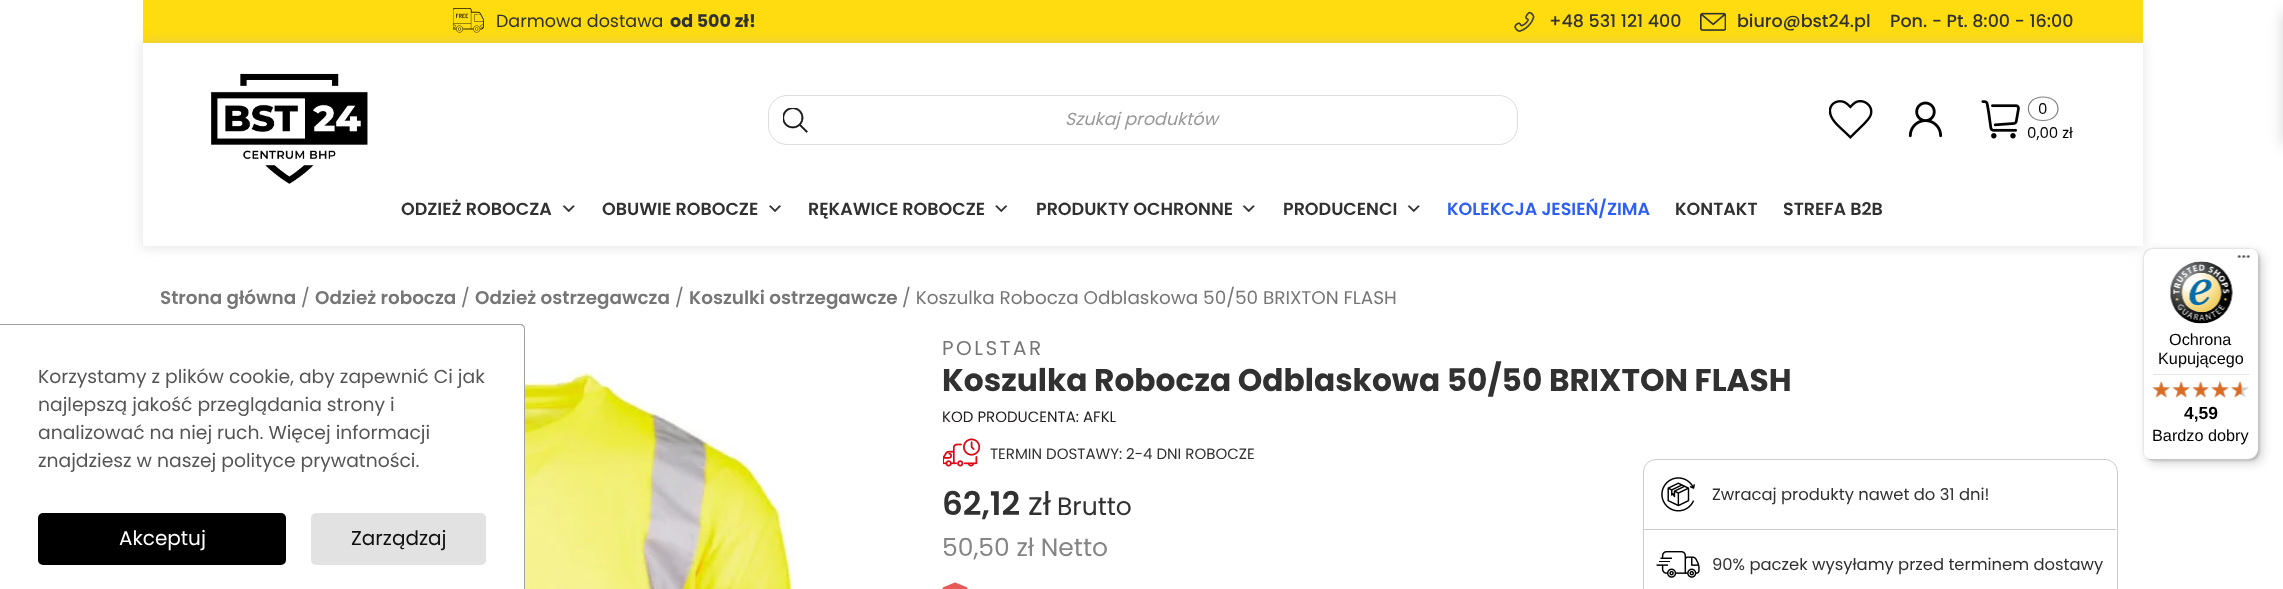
<svg xmlns="http://www.w3.org/2000/svg" width="2283" height="589" viewBox="0 0 2283 589">
  <style>
    .t1 { font: 17.5px Poppins; fill: #313131; }
    .t2 { font: bold 17.5px Poppins; fill: #313131; }
    .t3 { font: 500 17.5px Poppins; fill: #313131; }
    .t4 { font: italic 17.5px Poppins; fill: #999; }
    .t5 { font: 15px Poppins; fill: #000; }
    .t6 { font: 600 17.5px Poppins; fill: #313131; }
    .t7 { font: 600 17.5px Poppins; fill: #2d5ff5; }
    .t8 { font: 600 18.4px Poppins; fill: #767676; }
    .t9 { font: 18.4px Poppins; fill: #767676; }
    .t10 { font: 20px Poppins; letter-spacing: 2.5px; fill: #767676; }
    .t11 { font: bold 31.25px Poppins; fill: #313131; }
    .t12 { font: 15px Poppins; fill: #211d1e; }
    .t13 { font: 15px Poppins; fill: #313131; }
    .t14 { font: 600 32.5px Poppins; fill: #313131; }
    .t15 { font: 32.5px Poppins; fill: #313131; }
    .t16 { font: 25px Poppins; fill: #313131; }
    .t17 { font: 25px Poppins; fill: #858585; }
    .t18 { font: 16.4px Poppins; fill: #313131; }
    .t19 { font: 16.25px Liberation Sans; fill: #000; }
    .t20 { font: bold 17.5px Liberation Sans; fill: #000; }
    .t21 { font: 18.75px Poppins; fill: #555; }
    .t22 { font: 20px Poppins; fill: #fff; }
    .t23 { font: 20px Poppins; fill: #111; }
  </style>
  <defs>
    <clipPath id="clip1"><path d="M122 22H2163V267H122ZM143 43H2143V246H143Z" clip-rule="evenodd"/></clipPath>
  </defs>
  <rect width="100%" height="100%" fill="#fff"/>
  <rect x="143" y="0" width="2000" height="43" fill="#ffdc0f"/>
  <image x="453" y="8" width="31" height="25" href="images/1.png"/>
  <text x="496" y="27" class="t1">Darmowa dostawa</text>
  <text x="670" y="27" class="t2">od 500 zł!</text>
  <image x="1514" y="11" width="21" height="21" href="images/2.png"/>
  <text x="1549" y="27" class="t3">+48 531 121 400</text>
  <image x="1700" y="12" width="26" height="19" href="images/3.png"/>
  <text x="1737" y="27" class="t3">biuro@bst24.pl</text>
  <text x="1890" y="27" class="t3">Pon. - Pt. 8:00 - 16:00</text>
  <g clip-path="url(#clip1)">
    <rect x="141" y="41" width="2003" height="207" fill="#b5b5b552" filter="blur(6px)"/>
  </g>
  <image x="211" y="73" width="157" height="111" href="images/4.png"/>
  <rect x="768.5" y="95.5" width="749" height="49" rx="18.5" fill="none" stroke="#ddd"/>
  <image x="783" y="108" width="25" height="25" href="images/5.png"/>
  <text x="1065" y="125" class="t4">Szukaj produktów</text>
  <image x="1829" y="100" width="44" height="39" href="images/6.png"/>
  <image x="1908" y="101" width="35" height="37" href="images/7.png"/>
  <image x="1981" y="100" width="39" height="39" href="images/8.png"/>
  <path d="M2043 97C2063 97 2063 120.5 2043 120.5C2023.5 120.5 2023.5 97 2043 97Z" fill="none" stroke="#808080" stroke-width="1.2"/>
  <text x="2038" y="114" class="t5">0</text>
  <text x="2027" y="138" class="t5">0,00 zł</text>
  <rect x="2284" y="11" width="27" height="135" rx="5" fill="#0000002e" filter="blur(7.5px)"/>
  <text x="401" y="215" class="t6">ODZIEŻ ROBOCZA</text>
  <image x="562" y="205" width="13" height="8" href="images/9.png"/>
  <text x="602" y="215" class="t6">OBUWIE ROBOCZE</text>
  <image x="769" y="205" width="12" height="8" href="images/10.png"/>
  <text x="808" y="215" class="t6">RĘKAWICE ROBOCZE</text>
  <image x="995" y="205" width="13" height="8" href="images/11.png"/>
  <text x="1036" y="215" class="t6">PRODUKTY OCHRONNE</text>
  <image x="1242" y="205" width="13" height="8" href="images/9.png"/>
  <text x="1283" y="215" class="t6">PRODUCENCI</text>
  <image x="1407" y="205" width="13" height="8" href="images/9.png"/>
  <text x="1447" y="215" class="t7">KOLEKCJA JESIEŃ/ZIMA</text>
  <text x="1675" y="215" class="t6">KONTAKT</text>
  <text x="1783" y="215" class="t6">STREFA B2B</text>
  <text x="160" y="304" class="t8">Strona główna</text>
  <text x="301" y="304" class="t9">/</text>
  <text x="315" y="304" class="t8">Odzież robocza</text>
  <text x="461" y="304" class="t9">/</text>
  <text x="475" y="304" class="t8">Odzież ostrzegawcza</text>
  <text x="675" y="304" class="t9">/</text>
  <text x="689" y="304" class="t8">Koszulki ostrzegawcze</text>
  <text x="902" y="304" class="t9">/ Koszulka Robocza Odblaskowa 50/50 BRIXTON FLASH</text>
  <image x="525" y="372" width="271" height="217" href="images/12.png"/>
  <text x="942" y="355" class="t10">POLSTAR</text>
  <text x="942" y="391" class="t11">Koszulka Robocza Odblaskowa 50/50 BRIXTON FLASH</text>
  <text x="942" y="422" class="t12">KOD PRODUCENTA: AFKL</text>
  <image x="943" y="438" width="37" height="29" href="images/13.png"/>
  <text x="990" y="459" class="t13">TERMIN DOSTAWY: 2-4 DNI ROBOCZE</text>
  <text x="942" y="515" class="t14">62,12</text>
  <text x="1028" y="515" class="t15">zł</text>
  <text x="1057" y="515" class="t16">Brutto</text>
  <text x="942" y="556" class="t17">50,50 zł Netto</text>
  <rect x="1643.5" y="459.5" width="474" height="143" rx="12.5" fill="none" stroke="#ccc"/>
  <rect x="1644" y="529" width="472" height="1" fill="#ccc"/>
  <image x="1661" y="477" width="34" height="35" href="images/14.png"/>
  <text x="1712" y="500" class="t18">Zwracaj produkty nawet do 31 dni!</text>
  <image x="1656" y="551" width="44" height="27" href="images/15.png"/>
  <text x="1712" y="570" class="t18">90% paczek wysyłamy przed terminem dostawy</text>
  <image x="942" y="582" width="26" height="7" href="images/16.png"/>
  <rect x="2146" y="251" width="117" height="213" rx="10" fill="#00000026" filter="blur(5px)"/>
  <rect x="2144" y="249" width="116" height="212" rx="10" fill="#00000026" filter="blur(1px)"/>
  <rect x="2143" y="248" width="116" height="212" rx="10" fill="#fff"/>
  <path d="M2154 249H2250C2252 249 2254 249 2255 250C2254 249 2251 248 2249 248H2153C2147 248 2143 252 2143 258V450C2143 452 2144 455 2145 456C2144 455 2144 453 2144 451V259C2144 253 2148 249 2154 249Z" fill="#e5e5e5"/>
  <path d="M2147 458C2149 459 2151 460 2153 460H2249C2255 460 2259 456 2259 450V258C2259 256 2258 254 2257 252C2258 253 2258 255 2258 256V449C2258 454 2253 459 2248 459H2151C2150 459 2148 459 2147 458Z" fill="#00000033"/>
  <path d="M2147 458C2148 459 2151 460 2153 460H2249C2255 460 2259 456 2259 450V258C2259 256 2258 253 2257 252C2258 253 2258 255 2258 257V449C2258 455 2254 459 2248 459H2152C2150 459 2148 459 2147 458Z" fill="#32323233"/>
  <path d="M2147 458C2148 459 2151 460 2153 460H2249C2255 460 2259 456 2259 450V258C2259 256 2258 253 2257 252C2258 253 2258 255 2258 257V449C2258 455 2254 459 2248 459H2152C2150 459 2148 459 2147 458Z" fill="#ffffff4d"/>
  <image x="2237" y="255" width="13" height="3" href="images/17.png"/>
  <image x="2170" y="261" width="63" height="63" href="images/18.png"/>
  <text x="2169" y="345" class="t19">Ochrona</text>
  <text x="2158" y="364" class="t19">Kupującego</text>
  <rect x="2153" y="374" width="96" height="1" fill="#e5e5e5"/>
  <image x="2152" y="382" width="18" height="15" href="images/19.png"/>
  <image x="2173" y="381" width="17" height="17" href="images/20.png"/>
  <image x="2192" y="382" width="17" height="15" href="images/21.png"/>
  <image x="2211" y="381" width="18" height="17" href="images/22.png"/>
  <image x="2231" y="382" width="18" height="15" href="images/23.png"/>
  <image x="2152" y="381" width="18" height="17" href="images/24.png"/>
  <image x="2172" y="381" width="18" height="17" href="images/25.png"/>
  <image x="2192" y="381" width="17" height="17" href="images/26.png"/>
  <image x="2211" y="381" width="18" height="17" href="images/27.png"/>
  <image x="2231" y="381" width="11" height="17" href="images/28.png"/>
  <text x="2184" y="419" class="t20">4,59</text>
  <text x="2152" y="441" class="t19">Bardzo dobry</text>
  <path d="M0 324H520C523 324 525 326 525 329V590H0ZM0 325H520C522 325 524 327 524 329V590H0Z" fill="#a0a0a0" fill-rule="evenodd"/>
  <text x="38" y="383" class="t21">Korzystamy z plików cookie, aby zapewnić Ci jak</text>
  <text x="38" y="411" class="t21">najlepszą jakość przeglądania strony i</text>
  <text x="38" y="439" class="t21">analizować na niej ruch. Więcej informacji</text>
  <text x="38" y="467" class="t21">znajdziesz w naszej polityce prywatności.</text>
  <rect x="38" y="513" width="248" height="52" rx="5" fill="#000"/>
  <text x="119" y="545" class="t22">Akceptuj</text>
  <rect x="311" y="513" width="175" height="52" rx="5" fill="#e2e2e2"/>
  <text x="351" y="545" class="t23">Zarządzaj</text>
</svg>
